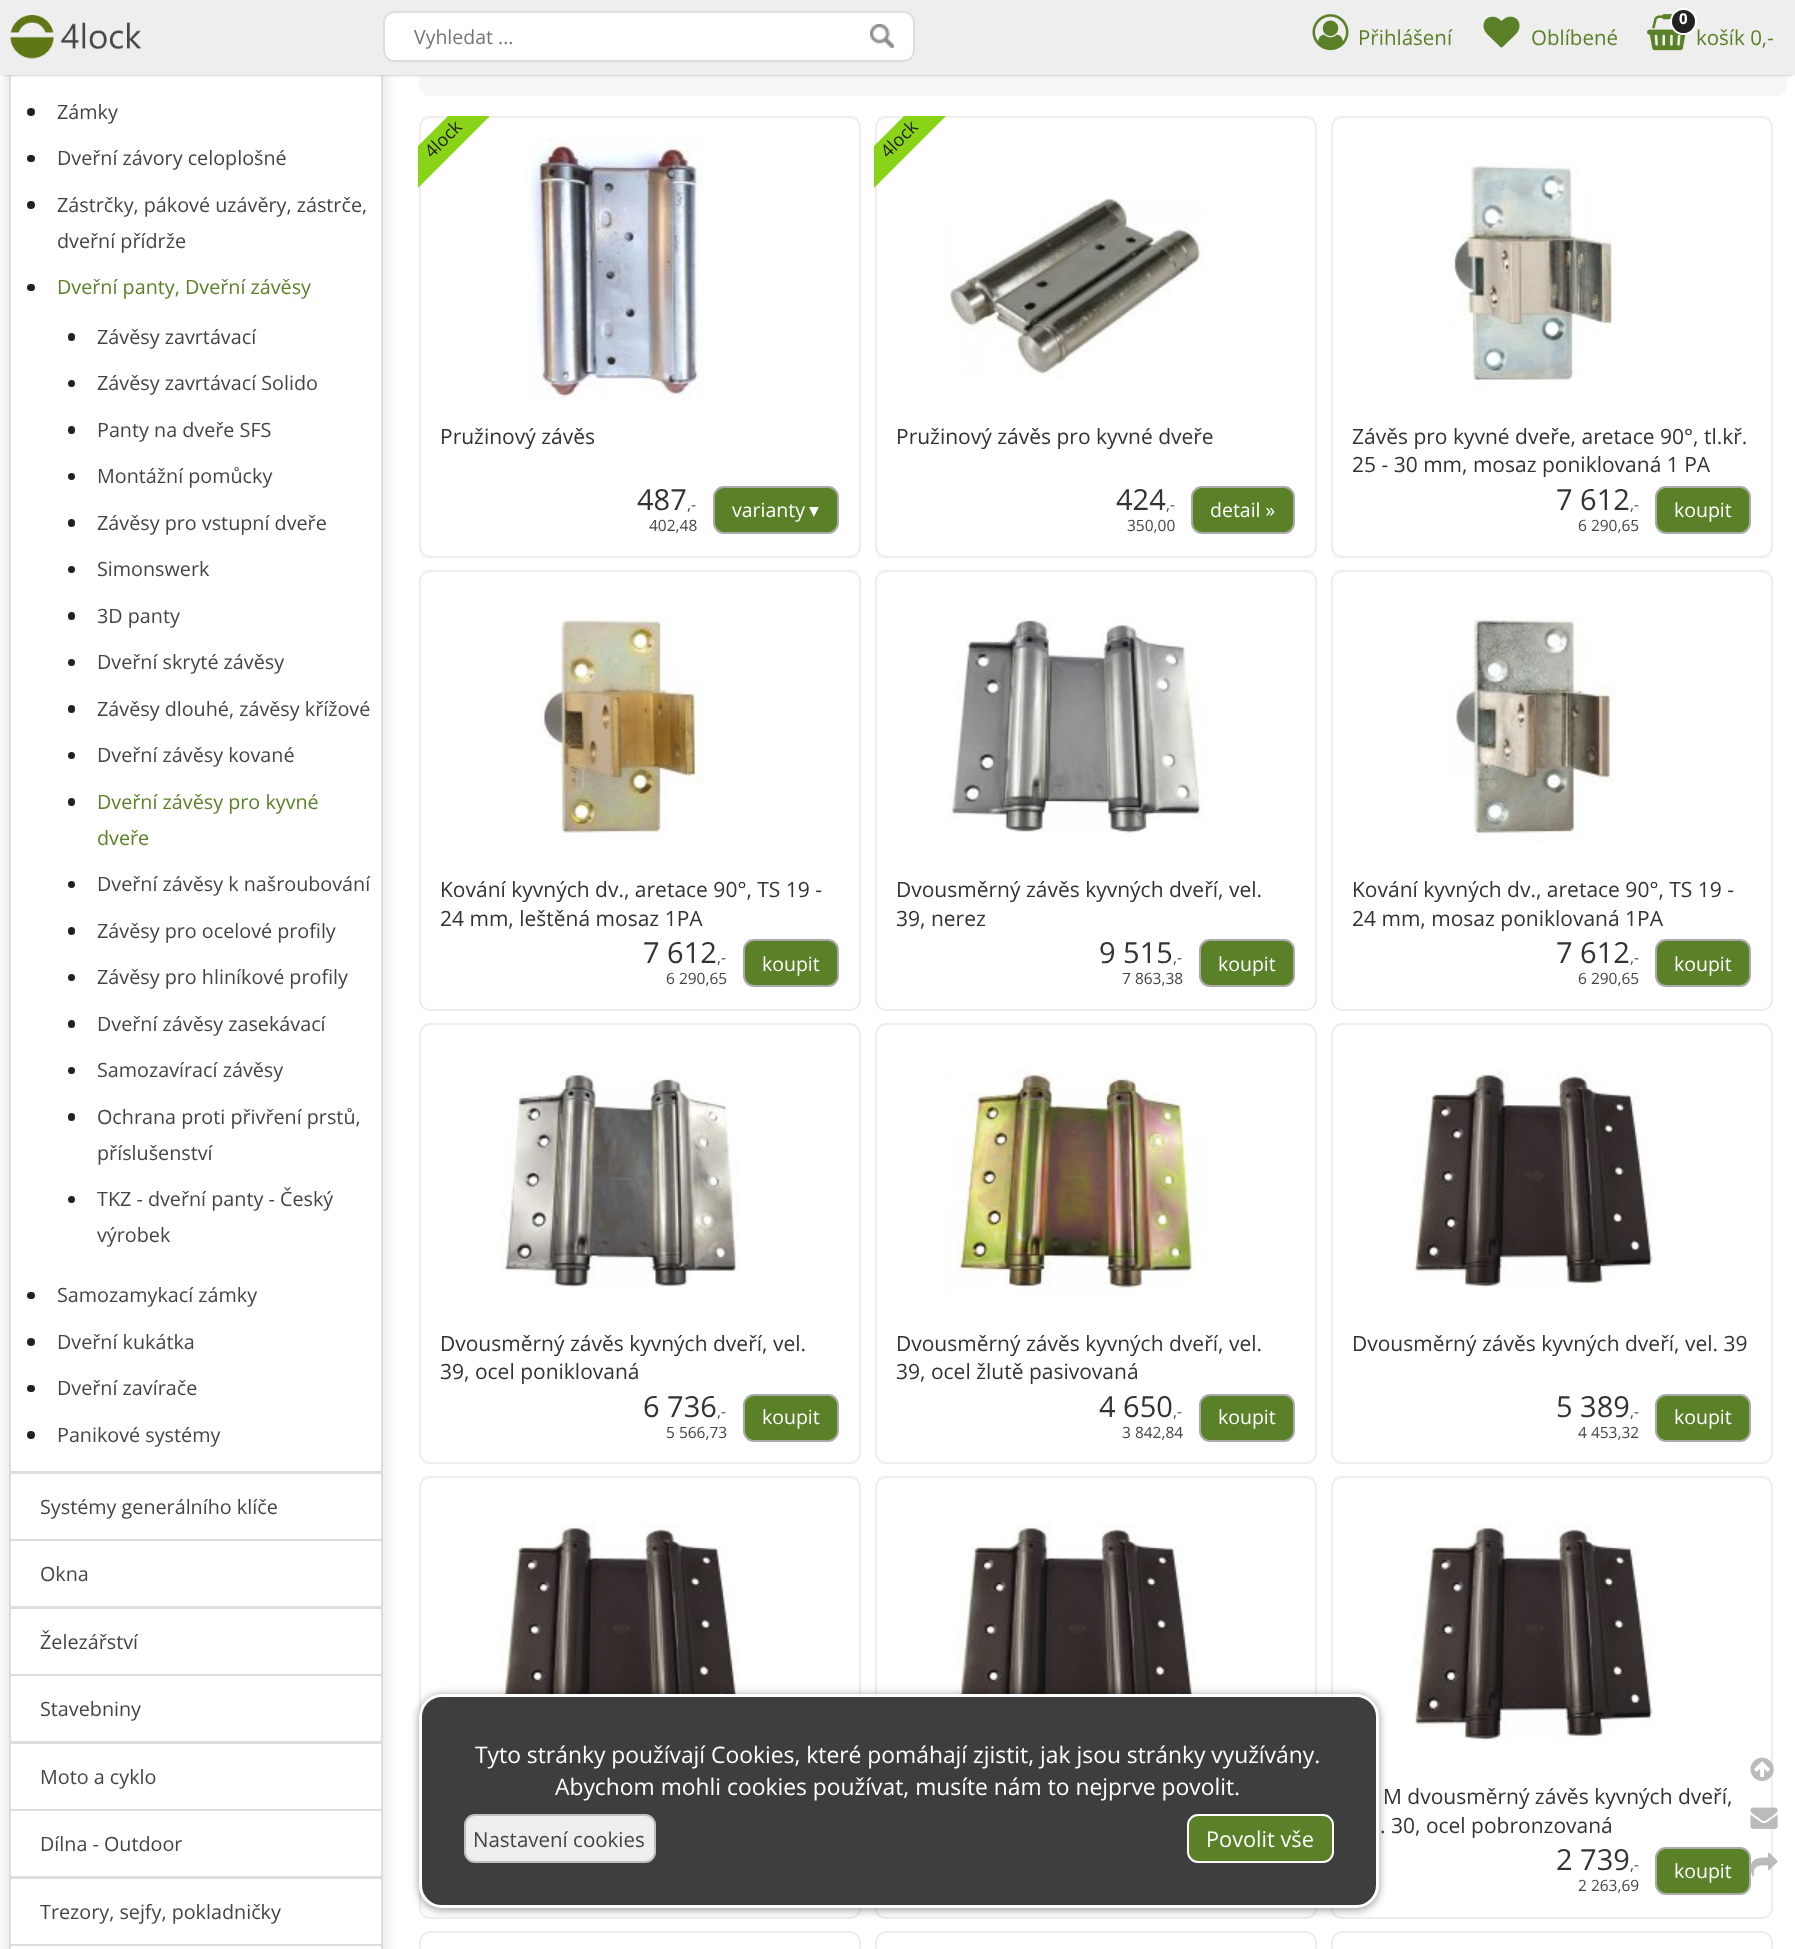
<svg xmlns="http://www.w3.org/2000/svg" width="1795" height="1949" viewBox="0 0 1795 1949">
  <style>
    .t1 { font: 19.5px Open Sans; fill: #757575; }
    .t2 { font: 20.5px Open Sans; fill: #5a8028; }
    .t3 { font: bold 15px Open Sans; fill: #fff; }
    .t4 { font: 19.75px Open Sans; fill: #444; }
    .t5 { font: 19.75px Open Sans; fill: #5a8028; }
    .t6 { font: 18px Open Sans; fill: #222; }
    .t7 { font: 21px Open Sans; fill: #333; }
    .t8 { font: 29px Open Sans; fill: #333; }
    .t9 { font: 15.5px Open Sans; fill: #444; }
    .t10 { font: 19.5px Open Sans; fill: #fff; }
    .t11 { font: 19.5px DejaVu Sans; fill: #fff; }
    .t12 { font: 22.85px Open Sans; fill: #fff; }
    .t13 { font: 20.5px Open Sans; fill: #444; }
    .t14 { font: 21.75px Open Sans; fill: #fff; }
  </style>
  <rect width="100%" height="100%" fill="#fff"/>
  <rect x="9" y="-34" width="374" height="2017" rx="11" fill="#ddd" filter="blur(7.5px)"/>
  <rect x="11" y="75" width="370" height="1396" fill="#fff"/>
  <rect x="10" y="-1" width="372" height="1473" fill="none" stroke="#ddd" stroke-width="2"/>
  <rect x="419" y="42" width="1368" height="54" rx="11" fill="#f7f7f7"/>
  <rect x="3" y="-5" width="1790" height="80" fill="#aaa" filter="blur(1.5px)"/>
  <rect x="0" y="0" width="1795" height="75" fill="#eee"/>
  <image x="10" y="15" width="131" height="45" href="images/1.png"/>
  <rect x="383" y="11" width="532" height="51" rx="11" fill="#fff"/>
  <image x="870" y="24" width="24" height="24" href="images/2.png"/>
  <rect x="384" y="12" width="530" height="49" rx="10" fill="none" stroke="#ddd" stroke-width="2"/>
  <text x="414" y="44" class="t1">Vyhledat ...</text>
  <image x="1312" y="14" width="37" height="37" href="images/3.png"/>
  <text x="1358" y="45" class="t2">Přihlášení</text>
  <image x="1483" y="16" width="37" height="32" href="images/4.png"/>
  <text x="1531" y="45" class="t2">Oblíbené</text>
  <image x="1647" y="14" width="41" height="37" href="images/5.png"/>
  <circle cx="1683.5" cy="21.5" r="12.5" fill="#222" stroke="#fff" stroke-width="2"/>
  <text x="1679" y="24" class="t3">0</text>
  <text x="1696" y="45" class="t2">košík 0,-</text>
  <circle cx="31" cy="112" r="4" fill="#222"/>
  <text x="57" y="119" class="t4">Zámky</text>
  <rect x="27" y="155" width="8" height="7" rx="3.5" fill="#222"/>
  <text x="57" y="165" class="t4">Dveřní závory celoplošné</text>
  <circle cx="31" cy="205" r="4" fill="#222"/>
  <text x="57" y="212" class="t4">Zástrčky, pákové uzávěry, zástrče,</text>
  <text x="57" y="248" class="t4">dveřní přídrže</text>
  <rect x="27" y="284" width="8" height="7" rx="3.5" fill="#222"/>
  <text x="57" y="294" class="t5">Dveřní panty, Dveřní závěsy</text>
  <rect x="68" y="333" width="7" height="8" rx="3.5" fill="#222"/>
  <text x="97" y="344" class="t4">Závěsy zavrtávací</text>
  <circle cx="71.5" cy="383.5" r="3.5" fill="#222"/>
  <text x="97" y="390" class="t4">Závěsy zavrtávací Solido</text>
  <rect x="68" y="426" width="7" height="8" rx="3.5" fill="#222"/>
  <text x="97" y="437" class="t4">Panty na dveře SFS</text>
  <circle cx="71.5" cy="476.5" r="3.5" fill="#222"/>
  <text x="97" y="483" class="t4">Montážní pomůcky</text>
  <rect x="68" y="519" width="7" height="8" rx="3.5" fill="#222"/>
  <text x="97" y="530" class="t4">Závěsy pro vstupní dveře</text>
  <circle cx="71.5" cy="569.5" r="3.5" fill="#222"/>
  <text x="97" y="576" class="t4">Simonswerk</text>
  <rect x="68" y="612" width="7" height="8" rx="3.5" fill="#222"/>
  <text x="97" y="623" class="t4">3D panty</text>
  <circle cx="71.5" cy="662.5" r="3.5" fill="#222"/>
  <text x="97" y="669" class="t4">Dveřní skryté závěsy</text>
  <rect x="68" y="705" width="7" height="8" rx="3.5" fill="#222"/>
  <text x="97" y="716" class="t4">Závěsy dlouhé, závěsy křížové</text>
  <circle cx="71.5" cy="755.5" r="3.5" fill="#222"/>
  <text x="97" y="762" class="t4">Dveřní závěsy kované</text>
  <rect x="68" y="798" width="7" height="8" rx="3.5" fill="#222"/>
  <text x="97" y="809" class="t5">Dveřní závěsy pro kyvné</text>
  <text x="97" y="845" class="t5">dveře</text>
  <circle cx="71.5" cy="884.5" r="3.5" fill="#222"/>
  <text x="97" y="891" class="t4">Dveřní závěsy k našroubování</text>
  <rect x="68" y="927" width="7" height="8" rx="3.5" fill="#222"/>
  <text x="97" y="938" class="t4">Závěsy pro ocelové profily</text>
  <circle cx="71.5" cy="977.5" r="3.5" fill="#222"/>
  <text x="97" y="984" class="t4">Závěsy pro hliníkové profily</text>
  <rect x="68" y="1020" width="7" height="8" rx="3.5" fill="#222"/>
  <text x="97" y="1031" class="t4">Dveřní závěsy zasekávací</text>
  <circle cx="71.5" cy="1070.5" r="3.5" fill="#222"/>
  <text x="97" y="1077" class="t4">Samozavírací závěsy</text>
  <rect x="68" y="1113" width="7" height="8" rx="3.5" fill="#222"/>
  <text x="97" y="1124" class="t4">Ochrana proti přivření prstů,</text>
  <text x="97" y="1160" class="t4">příslušenství</text>
  <circle cx="71.5" cy="1199.5" r="3.5" fill="#222"/>
  <text x="97" y="1206" class="t4">TKZ - dveřní panty - Český</text>
  <text x="97" y="1242" class="t4">výrobek</text>
  <rect x="27" y="1292" width="8" height="7" rx="3.5" fill="#222"/>
  <text x="57" y="1302" class="t4">Samozamykací zámky</text>
  <circle cx="31" cy="1342" r="4" fill="#222"/>
  <text x="57" y="1349" class="t4">Dveřní kukátka</text>
  <rect x="27" y="1385" width="8" height="7" rx="3.5" fill="#222"/>
  <text x="57" y="1395" class="t4">Dveřní zavírače</text>
  <circle cx="31" cy="1435" r="4" fill="#222"/>
  <text x="57" y="1442" class="t4">Panikové systémy</text>
  <rect x="10" y="1473" width="372" height="67" fill="#fff" stroke="#ddd" stroke-width="2"/>
  <text x="40" y="1514" class="t4">Systémy generálního klíče</text>
  <rect x="10" y="1540" width="372" height="67" fill="#fff" stroke="#ddd" stroke-width="2"/>
  <text x="40" y="1581" class="t4">Okna</text>
  <rect x="10" y="1608" width="372" height="67" fill="#fff" stroke="#ddd" stroke-width="2"/>
  <text x="40" y="1649" class="t4">Železářství</text>
  <rect x="10" y="1675" width="372" height="67" fill="#fff" stroke="#ddd" stroke-width="2"/>
  <text x="40" y="1716" class="t4">Stavebniny</text>
  <rect x="10" y="1743" width="372" height="67" fill="#fff" stroke="#ddd" stroke-width="2"/>
  <text x="40" y="1784" class="t4">Moto a cyklo</text>
  <rect x="10" y="1810" width="372" height="67" fill="#fff" stroke="#ddd" stroke-width="2"/>
  <text x="40" y="1851" class="t4">Dílna - Outdoor</text>
  <rect x="10" y="1878" width="372" height="67" fill="#fff" stroke="#ddd" stroke-width="2"/>
  <text x="40" y="1919" class="t4">Trezory, sejfy, pokladničky</text>
  <rect x="10" y="1945" width="372" height="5" fill="#fff" stroke="#ddd" stroke-width="2"/>
  <rect x="420" y="117" width="440" height="440" rx="10" fill="none" stroke="#eee" stroke-width="2"/>
  <path d="M490 116L418 188V146L448 116Z" fill="#89d318"/>
  <text x="432" y="159" transform="rotate(-45 432 159)" class="t6">4lock</text>
  <image x="525" y="138" width="179" height="264" href="images/6.png"/>
  <text x="440" y="444" class="t7">Pružinový závěs</text>
  <text x="637" y="510" class="t8">487</text>
  <text x="687" y="510" class="t9">,-</text>
  <text x="649" y="531" class="t9">402,48</text>
  <rect x="714" y="487" width="124" height="46" rx="10" fill="#5a8028" stroke="#aaa" stroke-width="2"/>
  <text x="732" y="517" class="t10">varianty</text>
  <text x="809" y="517" class="t11">▾</text>
  <rect x="876" y="117" width="440" height="440" rx="10" fill="none" stroke="#eee" stroke-width="2"/>
  <path d="M946 116L874 188V146L904 116Z" fill="#89d318"/>
  <text x="888" y="159" transform="rotate(-45 888 159)" class="t6">4lock</text>
  <image x="943" y="198" width="263" height="180" href="images/7.png"/>
  <text x="896" y="444" class="t7">Pružinový závěs pro kyvné dveře</text>
  <text x="1116" y="510" class="t8">424</text>
  <text x="1166" y="510" class="t9">,-</text>
  <text x="1127" y="531" class="t9">350,00</text>
  <rect x="1192" y="487" width="102" height="46" rx="10" fill="#5a8028" stroke="#aaa" stroke-width="2"/>
  <text x="1210" y="517" class="t10">detail »</text>
  <rect x="1332" y="117" width="440" height="440" rx="10" fill="none" stroke="#eee" stroke-width="2"/>
  <image x="1449" y="162" width="168" height="226" href="images/8.png"/>
  <text x="1352" y="444" class="t7">Závěs pro kyvné dveře, aretace 90°, tl.kř.</text>
  <text x="1352" y="472" class="t7">25 - 30 mm, mosaz poniklovaná 1 PA</text>
  <text x="1556" y="510" class="t8">7 612</text>
  <text x="1630" y="510" class="t9">,-</text>
  <text x="1578" y="531" class="t9">6 290,65</text>
  <rect x="1656" y="487" width="94" height="46" rx="10" fill="#5a8028" stroke="#aaa" stroke-width="2"/>
  <text x="1674" y="517" class="t10">koupit</text>
  <rect x="420" y="571" width="440" height="439" rx="10" fill="none" stroke="#eee" stroke-width="2"/>
  <image x="538" y="615" width="167" height="225" href="images/9.png"/>
  <text x="440" y="897" class="t7">Kování kyvných dv., aretace 90°, TS 19 -</text>
  <text x="440" y="926" class="t7">24 mm, leštěná mosaz 1PA</text>
  <text x="643" y="963" class="t8">7 612</text>
  <text x="717" y="963" class="t9">,-</text>
  <text x="666" y="984" class="t9">6 290,65</text>
  <rect x="744" y="940" width="94" height="46" rx="10" fill="#5a8028" stroke="#aaa" stroke-width="2"/>
  <text x="762" y="971" class="t10">koupit</text>
  <rect x="876" y="571" width="440" height="439" rx="10" fill="none" stroke="#eee" stroke-width="2"/>
  <image x="948" y="616" width="258" height="221" href="images/10.png"/>
  <text x="896" y="897" class="t7">Dvousměrný závěs kyvných dveří, vel.</text>
  <text x="896" y="926" class="t7">39, nerez</text>
  <text x="1099" y="963" class="t8">9 515</text>
  <text x="1173" y="963" class="t9">,-</text>
  <text x="1122" y="984" class="t9">7 863,38</text>
  <rect x="1200" y="940" width="94" height="46" rx="10" fill="#5a8028" stroke="#aaa" stroke-width="2"/>
  <text x="1218" y="971" class="t10">koupit</text>
  <rect x="1332" y="571" width="440" height="439" rx="10" fill="none" stroke="#eee" stroke-width="2"/>
  <image x="1450" y="615" width="167" height="228" href="images/11.png"/>
  <text x="1352" y="897" class="t7">Kování kyvných dv., aretace 90°, TS 19 -</text>
  <text x="1352" y="926" class="t7">24 mm, mosaz poniklovaná 1PA</text>
  <text x="1556" y="963" class="t8">7 612</text>
  <text x="1630" y="963" class="t9">,-</text>
  <text x="1578" y="984" class="t9">6 290,65</text>
  <rect x="1656" y="940" width="94" height="46" rx="10" fill="#5a8028" stroke="#aaa" stroke-width="2"/>
  <text x="1674" y="971" class="t10">koupit</text>
  <rect x="420" y="1024" width="440" height="439" rx="10" fill="none" stroke="#eee" stroke-width="2"/>
  <image x="500" y="1071" width="239" height="217" href="images/12.png"/>
  <text x="440" y="1351" class="t7">Dvousměrný závěs kyvných dveří, vel.</text>
  <text x="440" y="1379" class="t7">39, ocel poniklovaná</text>
  <text x="643" y="1417" class="t8">6 736</text>
  <text x="717" y="1417" class="t9">,-</text>
  <text x="666" y="1438" class="t9">5 566,73</text>
  <rect x="744" y="1395" width="94" height="46" rx="10" fill="#5a8028" stroke="#aaa" stroke-width="2"/>
  <text x="762" y="1424" class="t10">koupit</text>
  <rect x="876" y="1024" width="440" height="439" rx="10" fill="none" stroke="#eee" stroke-width="2"/>
  <image x="944" y="1069" width="263" height="227" href="images/13.png"/>
  <text x="896" y="1351" class="t7">Dvousměrný závěs kyvných dveří, vel.</text>
  <text x="896" y="1379" class="t7">39, ocel žlutě pasivovaná</text>
  <text x="1099" y="1417" class="t8">4 650</text>
  <text x="1173" y="1417" class="t9">,-</text>
  <text x="1122" y="1438" class="t9">3 842,84</text>
  <rect x="1200" y="1395" width="94" height="46" rx="10" fill="#5a8028" stroke="#aaa" stroke-width="2"/>
  <text x="1218" y="1424" class="t10">koupit</text>
  <rect x="1332" y="1024" width="440" height="439" rx="10" fill="none" stroke="#eee" stroke-width="2"/>
  <image x="1413" y="1070" width="240" height="218" href="images/14.png"/>
  <text x="1352" y="1351" class="t7">Dvousměrný závěs kyvných dveří, vel. 39</text>
  <text x="1556" y="1417" class="t8">5 389</text>
  <text x="1630" y="1417" class="t9">,-</text>
  <text x="1578" y="1438" class="t9">4 453,32</text>
  <rect x="1656" y="1395" width="94" height="46" rx="10" fill="#5a8028" stroke="#aaa" stroke-width="2"/>
  <text x="1674" y="1424" class="t10">koupit</text>
  <rect x="420" y="1477" width="440" height="441" rx="10" fill="none" stroke="#eee" stroke-width="2"/>
  <image x="499" y="1523" width="240" height="171" href="images/15.png"/>
  <rect x="876" y="1477" width="440" height="441" rx="10" fill="none" stroke="#eee" stroke-width="2"/>
  <image x="955" y="1523" width="240" height="171" href="images/16.png"/>
  <rect x="1332" y="1477" width="440" height="441" rx="10" fill="none" stroke="#eee" stroke-width="2"/>
  <image x="1413" y="1523" width="240" height="218" href="images/14.png"/>
  <text x="1383" y="1804" class="t7">M dvousměrný závěs kyvných dveří,</text>
  <text x="1380" y="1833" class="t7">. 30, ocel pobronzovaná</text>
  <text x="1556" y="1870" class="t8">2 739</text>
  <text x="1630" y="1870" class="t9">,-</text>
  <text x="1578" y="1891" class="t9">2 263,69</text>
  <rect x="1656" y="1848" width="94" height="46" rx="10" fill="#5a8028" stroke="#aaa" stroke-width="2"/>
  <text x="1674" y="1878" class="t10">koupit</text>
  <rect x="420" y="1932" width="440" height="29" rx="10" fill="none" stroke="#eee" stroke-width="2"/>
  <rect x="876" y="1932" width="440" height="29" rx="10" fill="none" stroke="#eee" stroke-width="2"/>
  <rect x="1332" y="1932" width="440" height="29" rx="10" fill="none" stroke="#eee" stroke-width="2"/>
  <rect x="419" y="1695" width="960" height="215" rx="23" fill="#00000066" filter="blur(4.5px)"/>
  <rect x="420.5" y="1695.5" width="957" height="211" rx="21.5" fill="#3e3e3e" stroke="#fff" stroke-width="3"/>
  <text x="475" y="1763" class="t12">Tyto stránky používají Cookies, které pomáhají zjistit, jak jsou stránky využívány.</text>
  <text x="555" y="1795" class="t12">Abychom mohli cookies používat, musíte nám to nejprve povolit.</text>
  <rect x="465" y="1815" width="190" height="47" rx="10" fill="#eee" stroke="#c0c0c0" stroke-width="2"/>
  <text x="473" y="1847" class="t13">Nastavení cookies</text>
  <rect x="1188" y="1815" width="145" height="47" rx="10" fill="#5a8028" stroke="#fff" stroke-width="2"/>
  <text x="1206" y="1847" class="t14">Povolit vše</text>
  <image x="1750" y="1757" width="24" height="24" href="images/17.png"/>
  <image x="1750" y="1807" width="28" height="22" href="images/18.png"/>
  <image x="1750" y="1852" width="28" height="25" href="images/19.png"/>
</svg>
